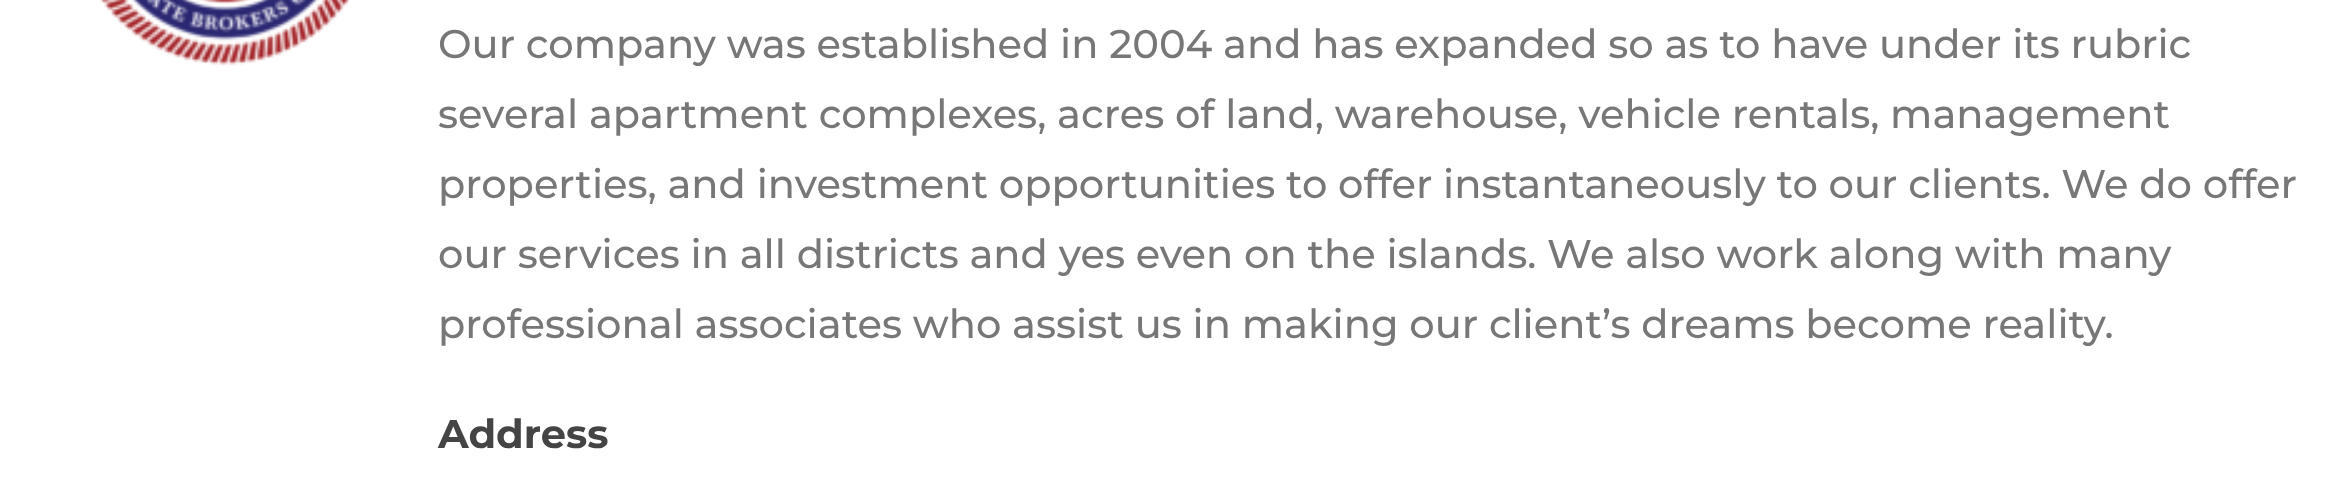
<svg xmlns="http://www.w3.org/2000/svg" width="2349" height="486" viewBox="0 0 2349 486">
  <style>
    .t1 { font: 500 40px Montserrat; fill: #777; }
    .t2 { font: bold 40px Montserrat; fill: #444; }
  </style>
  <rect width="100%" height="100%" fill="#fff"/>
  <image x="99" y="0" width="251" height="66" href="images/1.png"/>
  <text x="438" y="58" class="t1">Our company was established in 2004 and has expanded so as to have under its rubric</text>
  <text x="438" y="128" class="t1">several apartment complexes, acres of land, warehouse, vehicle rentals, management</text>
  <text x="438" y="198" class="t1">properties, and investment opportunities to offer instantaneously to our clients. We do offer</text>
  <text x="438" y="268" class="t1">our services in all districts and yes even on the islands. We also work along with many</text>
  <text x="438" y="338" class="t1">professional associates who assist us in making our client’s dreams become reality.</text>
  <text x="438" y="448" class="t2">Address</text>
</svg>
